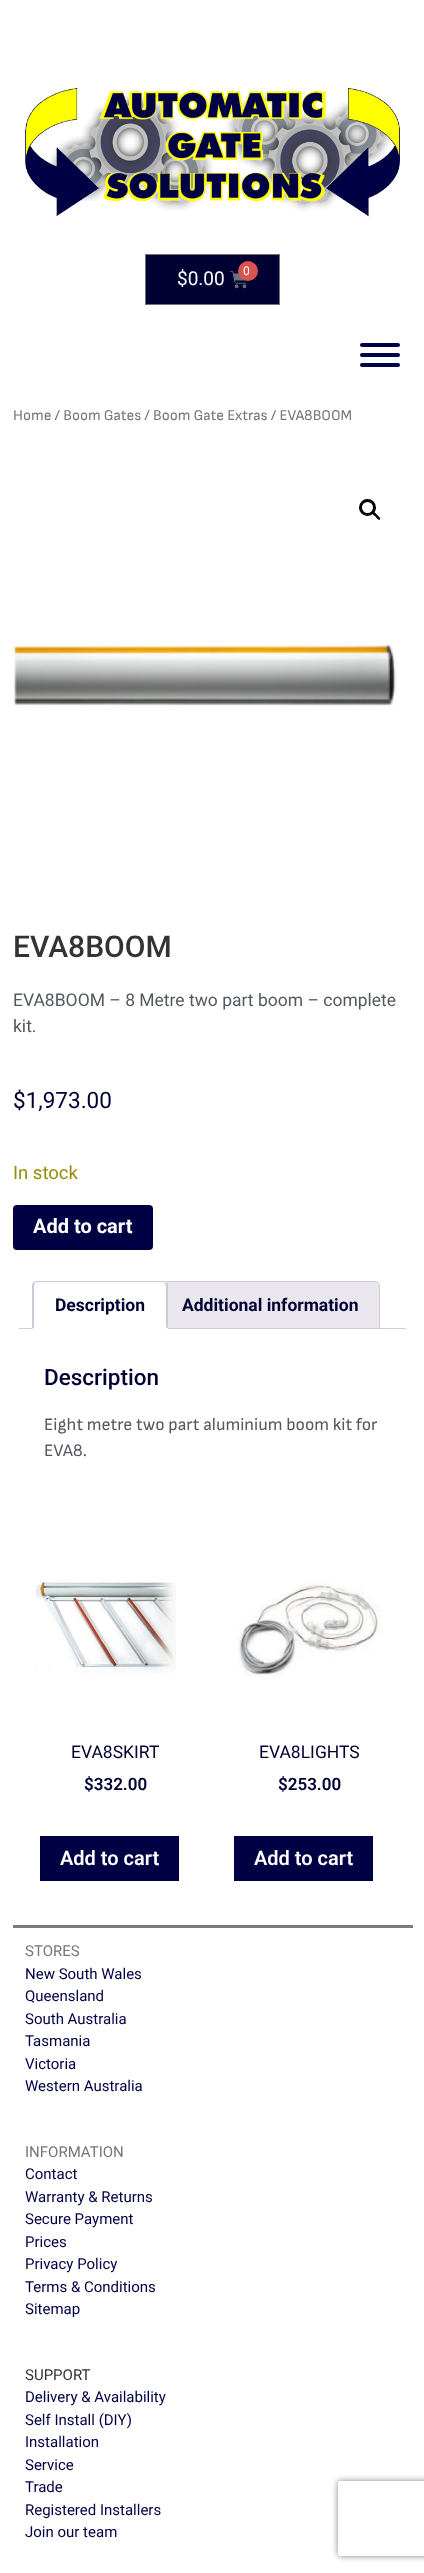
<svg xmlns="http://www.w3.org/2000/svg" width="424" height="2573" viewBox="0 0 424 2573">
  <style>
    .t1 { font: 19px Roboto; fill: #fff; }
    .t2 { font: 12px Roboto; fill: #fff; }
    .t3 { font: 15px Sofia Sans; fill: #767676; }
    .t4 { font: 500 30px Roboto; fill: #333; }
    .t5 { font: 17.5px Roboto; fill: #54595f; }
    .t6 { font: 22.5px Roboto; fill: #003; }
    .t7 { font: 18.5px Roboto; fill: #958e09; }
    .t8 { font: bold 20px Roboto; fill: #fff; }
    .t9 { font: bold 17.5px Roboto; fill: #003; }
    .t10 { font: 500 22.5px Roboto; fill: #003; }
    .t11 { font: 17.5px Sofia Sans; fill: #54595f; }
    .t12 { font: 17.5px Roboto; fill: #003; }
    .t13 { font: 600 17px Roboto; fill: #003; }
    .t14 { font: 600 20px Roboto; fill: #fff; }
    .t15 { font: 15px Roboto; fill: #767676; }
    .t16 { font: 15px Roboto; fill: #004; }
    .t17 { font: 15px Roboto; fill: #333; }
  </style>
  <defs>
    <clipPath id="clip1"><path d="M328 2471H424V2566H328ZM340.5 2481H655.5C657 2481 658 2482 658 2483.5V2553.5C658 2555 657 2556 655.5 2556H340.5C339 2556 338 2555 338 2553.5V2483.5C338 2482 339 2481 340.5 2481Z" clip-rule="evenodd"/></clipPath>
  </defs>
  <rect width="100%" height="100%" fill="#fff"/>
  <image x="25" y="87" width="375" height="130" href="images/1.png"/>
  <rect x="145.5" y="254.5" width="134" height="50" fill="#003" stroke="#69727d"/>
  <text x="177" y="285" class="t1">$0.00</text>
  <image x="230" y="271" width="17" height="18" href="images/2.png"/>
  <circle cx="248" cy="271" r="10" fill="#d9534f"/>
  <text x="243" y="275" class="t2">0</text>
  <rect x="360" y="343" width="40" height="4" rx="2" fill="#004"/>
  <rect x="360" y="353" width="40" height="4" rx="2" fill="#004"/>
  <rect x="360" y="363" width="40" height="4" rx="2" fill="#004"/>
  <text x="13" y="420" class="t3">Home / Boom Gates / Boom Gate Extras / EVA8BOOM</text>
  <circle cx="367.5" cy="507.5" r="7" fill="none" stroke="#000" stroke-width="3"/>
  <path d="M372.5 512.5C374 511 376.5 514 377 515C378 515.5 381 518 380 519.5C378.5 521 376 517.5 375.5 516.5C374.5 516 371.5 513.5 372.5 512.5Z" fill="#000"/>
  <image x="13" y="644" width="383" height="63" href="images/3.png"/>
  <text x="13" y="957" class="t4">EVA8BOOM</text>
  <text x="13" y="1006" class="t5">EVA8BOOM – 8 Metre two part boom – complete</text>
  <text x="13" y="1032" class="t5">kit.</text>
  <text x="13" y="1108" class="t6">$1,973.00</text>
  <text x="13" y="1179" class="t7">In stock</text>
  <rect x="13" y="1205" width="140" height="45" rx="4" fill="#004"/>
  <text x="33" y="1233" class="t8">Add to cart</text>
  <rect x="19" y="1328" width="387" height="1" fill="#d3ced2"/>
  <path d="M165 1281.5H375C377.5 1281.5 379.5 1283.5 379.5 1286V1328.5H160.5V1286C160.5 1283.5 162.5 1281.5 165 1281.5Z" fill="#e9e6ed" stroke="#cfc8d8"/>
  <path d="M38 1281H163C166 1281 168 1283 168 1286V1329H33V1286C33 1283 35 1281 38 1281Z" fill="#fff"/>
  <path d="M38 1282C36 1282 35 1283 35 1283L34 1282L36 1281H164L166 1282L165 1283C165 1283 164 1282 162 1282Z" fill="#cfc8d8"/>
  <path d="M166 1282L168 1284V1329L166 1327V1286L165 1283Z" fill="#cfc8d8"/>
  <path d="M168 1329L166 1327V1328H34V1327L32 1329Z" fill="#fff"/>
  <path d="M32 1329V1284L34 1282L35 1283L34 1286V1327Z" fill="#cfc8d8"/>
  <text x="55" y="1311" class="t9">Description</text>
  <text x="182" y="1311" class="t9">Additional information</text>
  <text x="44" y="1385" class="t10">Description</text>
  <text x="44" y="1430" class="t11">Eight metre two part aluminium boom kit for</text>
  <text x="44" y="1456" class="t11">EVA8.</text>
  <image x="35" y="1580" width="141" height="93" href="images/4.png"/>
  <text x="71" y="1758" class="t12">EVA8SKIRT</text>
  <text x="84" y="1790" class="t13">$332.00</text>
  <rect x="40" y="1836" width="139" height="45" fill="#004"/>
  <text x="60" y="1865" class="t14">Add to cart</text>
  <image x="237" y="1581" width="144" height="95" href="images/5.png"/>
  <text x="259" y="1758" class="t12">EVA8LIGHTS</text>
  <text x="278" y="1790" class="t13">$253.00</text>
  <rect x="234" y="1836" width="139" height="45" fill="#004"/>
  <text x="254" y="1865" class="t14">Add to cart</text>
  <rect x="13" y="1925" width="400" height="3" fill="#7a7a7a"/>
  <text x="25" y="1956" class="t15">STORES</text>
  <text x="25" y="1979" class="t16">New South Wales</text>
  <text x="25" y="2001" class="t16">Queensland</text>
  <text x="25" y="2024" class="t16">South Australia</text>
  <text x="25" y="2046" class="t16">Tasmania</text>
  <text x="25" y="2069" class="t16">Victoria</text>
  <text x="25" y="2091" class="t16">Western Australia</text>
  <text x="25" y="2157" class="t15">INFORMATION</text>
  <text x="25" y="2179" class="t16">Contact</text>
  <text x="25" y="2202" class="t16">Warranty &amp; Returns</text>
  <text x="25" y="2224" class="t16">Secure Payment</text>
  <text x="25" y="2247" class="t16">Prices</text>
  <text x="25" y="2269" class="t16">Privacy Policy</text>
  <text x="25" y="2292" class="t16">Terms &amp; Conditions</text>
  <text x="25" y="2314" class="t16">Sitemap</text>
  <text x="25" y="2380" class="t17">SUPPORT</text>
  <text x="25" y="2402" class="t16">Delivery &amp; Availability</text>
  <text x="25" y="2425" class="t16">Self Install (DIY)</text>
  <text x="25" y="2447" class="t16">Installation</text>
  <text x="25" y="2470" class="t16">Service</text>
  <text x="25" y="2492" class="t16">Trade</text>
  <text x="25" y="2515" class="t16">Registered Installers</text>
  <text x="25" y="2537" class="t16">Join our team</text>
  <g clip-path="url(#clip1)">
    <rect x="338" y="2481" width="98" height="75" rx="2.5" fill="#808080" filter="blur(3px)"/>
  </g>
</svg>
